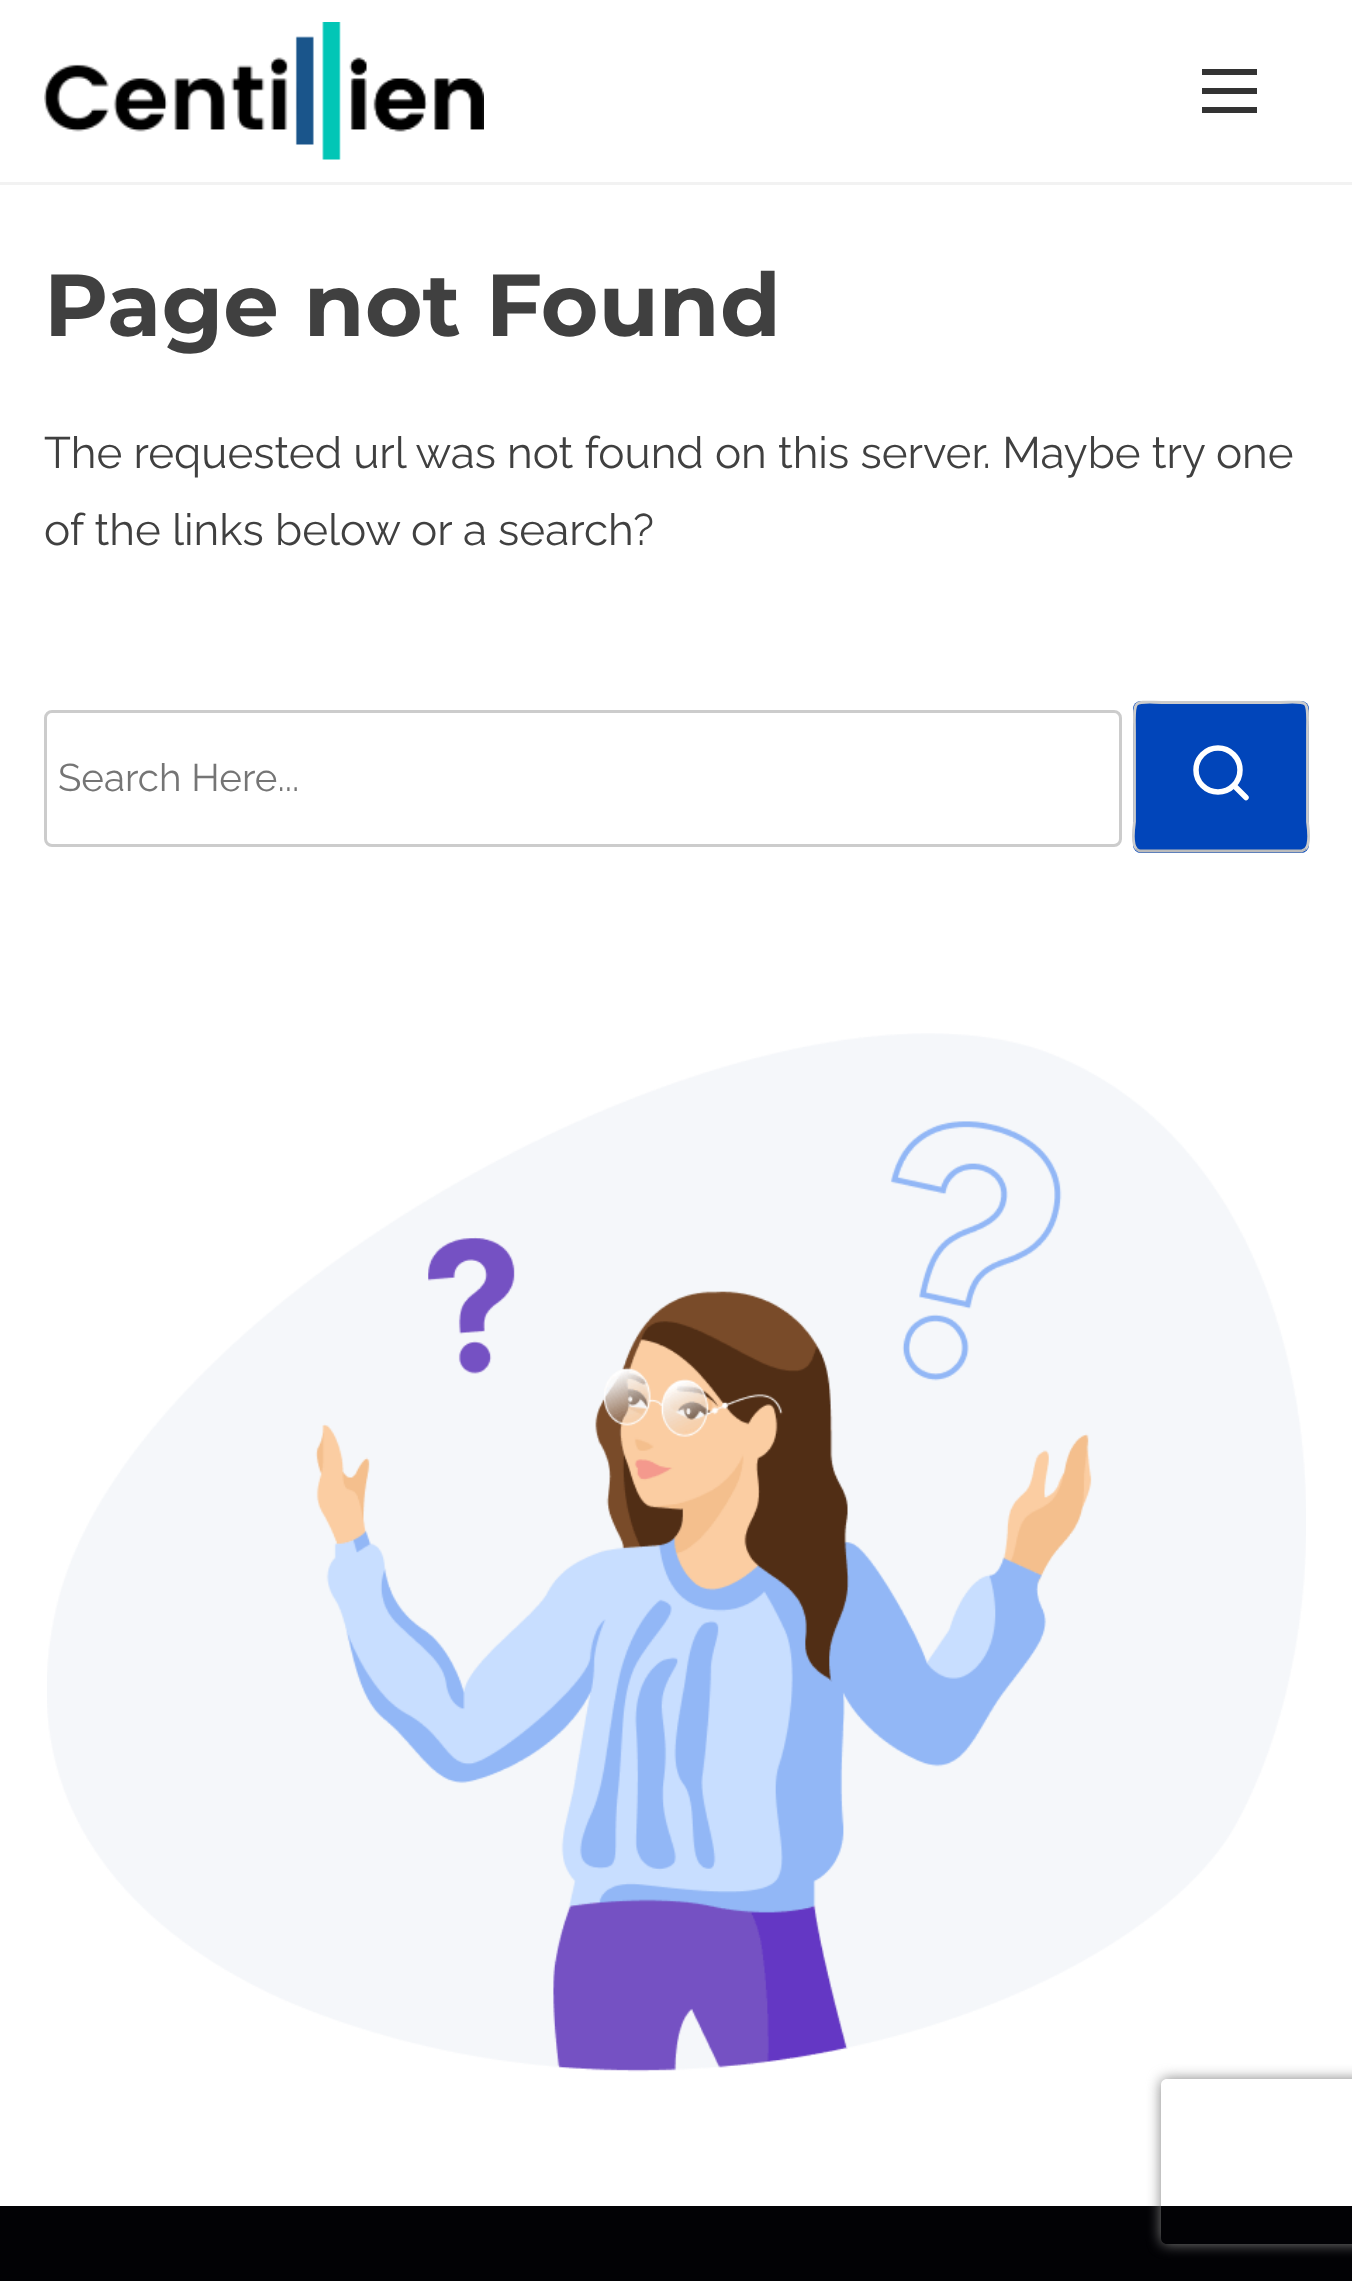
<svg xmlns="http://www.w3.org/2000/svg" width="1352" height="2281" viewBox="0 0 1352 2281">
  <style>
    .t1 { font: bold 88px Montserrat; fill: #404040; }
    .t2 { font: 44px Raleway; fill: #404040; }
    .t3 { font: 38.5px Raleway; fill: #757575; }
  </style>
  <defs>
    <clipPath id="clip1"><path d="M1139 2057H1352V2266H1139ZM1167 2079H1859C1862.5 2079 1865 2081.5 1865 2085V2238C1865 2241.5 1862.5 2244 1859 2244H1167C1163.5 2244 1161 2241.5 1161 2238V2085C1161 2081.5 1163.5 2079 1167 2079Z" clip-rule="evenodd"/></clipPath>
  </defs>
  <rect width="100%" height="100%" fill="#fff"/>
  <rect x="0" y="182" width="1352" height="3" fill="#f2f2f2"/>
  <image x="44" y="22" width="440" height="138" href="images/1.png"/>
  <rect x="1202" y="107" width="55" height="6" fill="#333"/>
  <rect x="1202" y="69" width="55" height="6" fill="#333"/>
  <rect x="1202" y="88" width="55" height="6" fill="#333"/>
  <text x="44" y="336" class="t1">Page not Found</text>
  <text x="44" y="468" class="t2">The requested url was not found on this server. Maybe try one</text>
  <text x="44" y="545" class="t2">of the links below or a search?</text>
  <rect x="45.5" y="711.5" width="1075" height="134" rx="6.5" fill="none" stroke="#ccc" stroke-width="3"/>
  <text x="58" y="791" class="t3">Search Here...</text>
  <rect x="1133" y="701" width="176" height="152" rx="8" fill="#0145ba"/>
  <path d="M1305.5 849L1301.5 851H1140.5C1139 851 1137.5 850 1136.5 849" fill="none" stroke="#bbb" stroke-width="2.8"/>
  <path d="M1136.5 849C1131 843.5 1134.5 822.5 1134.5 822V732C1134.5 696.5 1130.5 702.5 1168 702.5H1274C1311.5 702.5 1307.5 696.5 1307.5 732V822C1307.5 822.5 1311 843.5 1305.5 849" fill="none" stroke="#ccc" stroke-width="2.8"/>
  <circle cx="1218" cy="770" r="22" fill="none" stroke="#fff" stroke-width="5.5"/>
  <path d="M1246 797.5L1234 785.5" fill="none" stroke="#fff" stroke-width="5.5" stroke-linecap="round" stroke-linejoin="round"/>
  <image x="47" y="1033" width="1259" height="1039" href="images/2.png"/>
  <rect x="0" y="2206" width="1352" height="75" fill="#020205"/>
  <g clip-path="url(#clip1)">
    <rect x="1161" y="2079" width="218" height="165" rx="6" fill="#808080" filter="blur(7px)"/>
  </g>
</svg>
